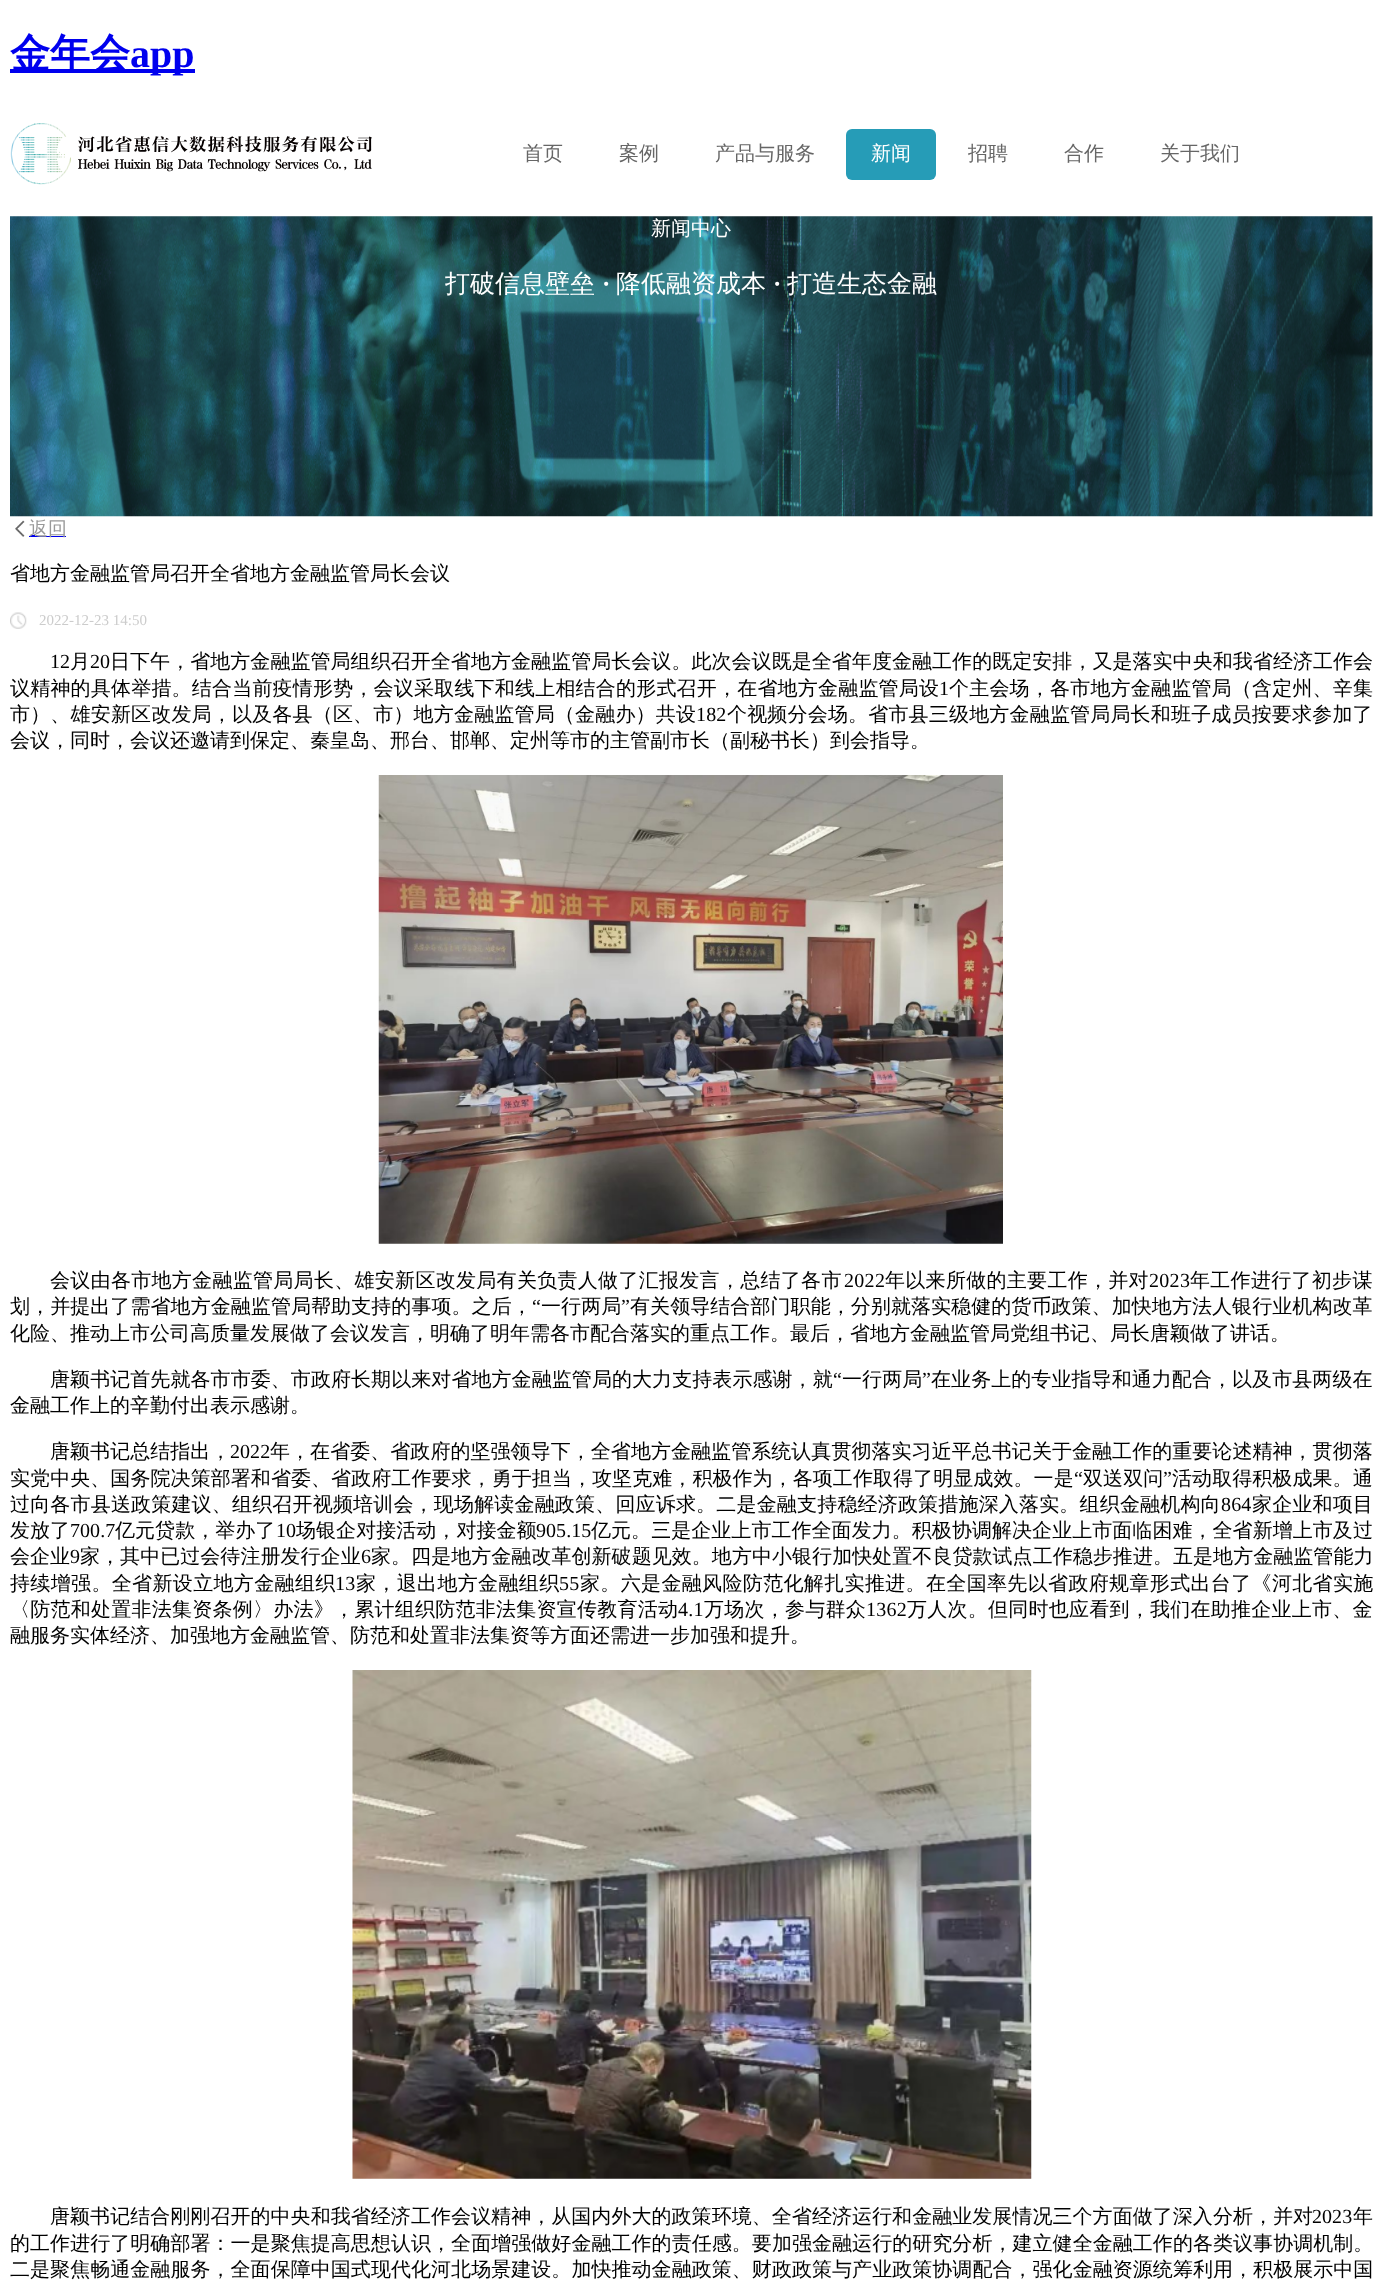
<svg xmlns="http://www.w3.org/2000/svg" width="1382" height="2281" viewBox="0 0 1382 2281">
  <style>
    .t1 { font: bold 40px WenQuanYi Zen Hei; fill: #00e; }
    .t2 { font: bold 40px Liberation Serif; fill: #00e; }
    .t3 { font: 500 20px WenQuanYi Zen Hei; fill: #666; }
    .t4 { font: 500 20px WenQuanYi Zen Hei; fill: #fff; }
    .t5 { font: 500 25px WenQuanYi Zen Hei; fill: #fff; }
    .t6 { font: bold 25px Liberation Serif; fill: #fff; }
    .t7 { font: 500 19px WenQuanYi Zen Hei; fill: #999; }
    .t8 { font: 500 20px WenQuanYi Zen Hei; fill: #000; }
    .t9 { font: 15px Liberation Serif; fill: #ccc; }
    .t10 { font: 20px Liberation Serif; letter-spacing: 0.05px; fill: #000; }
    .t11 { font: 500 20px WenQuanYi Zen Hei; letter-spacing: 0.05px; fill: #000; }
    .t12 { font: 500 20px WenQuanYi Zen Hei; letter-spacing: 0.2px; fill: #000; }
    .t13 { font: 20px Liberation Serif; letter-spacing: 0.2px; fill: #000; }
    .t14 { font: 500 20px WenQuanYi Zen Hei; letter-spacing: 0.18px; fill: #000; }
    .t15 { font: 20px Liberation Serif; letter-spacing: 0.18px; fill: #000; }
    .t16 { font: 500 20px WenQuanYi Zen Hei; letter-spacing: 0.3px; fill: #000; }
    .t17 { font: 20px Liberation Serif; letter-spacing: 0.3px; fill: #000; }
    .t18 { font: 500 20px WenQuanYi Zen Hei; letter-spacing: 0.07px; fill: #000; }
    .t19 { font: 20px Liberation Serif; letter-spacing: 0.07px; fill: #000; }
    .t20 { font: 500 20px WenQuanYi Zen Hei; letter-spacing: 0.35px; fill: #000; }
    .t21 { font: 20px Liberation Serif; letter-spacing: 0.35px; fill: #000; }
    .t22 { font: 500 20px WenQuanYi Zen Hei; letter-spacing: 0.25px; fill: #000; }
    .t23 { font: 20px Liberation Serif; letter-spacing: 0.25px; fill: #000; }
  </style>
  <rect width="100%" height="100%" fill="#fff"/>
  <rect x="10" y="69" width="185" height="4" fill="#00e"/>
  <text x="10" y="67" class="t1">金年会</text>
  <text x="130" y="67" class="t2">app</text>
  <image x="10" y="123" width="362" height="62" href="images/1.png"/>
  <text x="523" y="160" class="t3">首页</text>
  <text x="619" y="160" class="t3">案例</text>
  <text x="715" y="160" class="t3">产品与服务</text>
  <rect x="846" y="129" width="90" height="51" rx="6" fill="#269cb7"/>
  <text x="871" y="160" class="t4">新闻</text>
  <text x="968" y="160" class="t3">招聘</text>
  <text x="1064" y="160" class="t3">合作</text>
  <text x="1160" y="160" class="t3">关于我们</text>
  <image x="10" y="216" width="1363" height="301" href="images/2.png"/>
  <text x="651" y="235" class="t4">新闻中心</text>
  <text x="445" y="292" class="t5">打破信息壁垒</text>
  <text x="602" y="292" class="t6">·</text>
  <text x="616" y="292" class="t5">降低融资成本</text>
  <text x="773" y="292" class="t6">·</text>
  <text x="787" y="292" class="t5">打造生态金融</text>
  <image x="15" y="520" width="10" height="17" href="images/3.png"/>
  <rect x="30" y="535" width="5" height="1" fill="#00e"/>
  <rect x="29" y="536" width="37" height="1" fill="#00e"/>
  <text x="29" y="535" class="t7">返回</text>
  <text x="10" y="580" class="t8">省地方金融监管局召开全省地方金融监管局长会议</text>
  <image x="10" y="612" width="17" height="17" href="images/4.png"/>
  <text x="39" y="625" class="t9">2022-12-23 14:50</text>
  <text x="50" y="668" class="t10">12</text>
  <text x="70" y="668" class="t11">月</text>
  <text x="90" y="668" class="t10">20</text>
  <text x="110" y="668" class="t11">日下午，省地方金融监管局组织召开全省地方金融监管局长会议。此次会议既是全省年度金融工作的既定安排，又是落实中央和我省经济工作会</text>
  <text x="10" y="695" class="t12">议精神的具体举措。结合当前疫情形势，会议采取线下和线上相结合的形式召开，在省地方金融监管局设</text>
  <text x="939" y="695" class="t13">1</text>
  <text x="949" y="695" class="t12">个主会场，各市地方金融监管局（含定州、辛集</text>
  <text x="10" y="721" class="t14">市）、雄安新区改发局，以及各县（区、市）地方金融监管局（金融办）共设</text>
  <text x="696" y="721" class="t15">182</text>
  <text x="727" y="721" class="t14">个视频分会场。省市县三级地方金融监管局局长和班子成员按要求参加了</text>
  <text x="10" y="747" class="t8">会议，同时，会议还邀请到保定、秦皇岛、邢台、邯郸、定州等市的主管副市长（副秘书长）到会指导。</text>
  <image x="378" y="775" width="625" height="469" href="images/5.png"/>
  <text x="50" y="1287" class="t16">会议由各市地方金融监管局局长、雄安新区改发局有关负责人做了汇报发言，总结了各市</text>
  <text x="844" y="1287" class="t17">2022</text>
  <text x="885" y="1287" class="t16">年以来所做的主要工作，并对</text>
  <text x="1149" y="1287" class="t17">2023</text>
  <text x="1190" y="1287" class="t16">年工作进行了初步谋</text>
  <text x="10" y="1313" class="t18">划，并提出了需省地方金融监管局帮助支持的事项。之后，</text>
  <text x="532" y="1313" class="t19">“</text>
  <text x="541" y="1313" class="t18">一行两局</text>
  <text x="621" y="1313" class="t19">”</text>
  <text x="630" y="1313" class="t18">有关领导结合部门职能，分别就落实稳健的货币政策、加快地方法人银行业机构改革</text>
  <text x="10" y="1340" class="t8">化险、推动上市公司高质量发展做了会议发言，明确了明年需各市配合落实的重点工作。最后，省地方金融监管局党组书记、局长唐颖做了讲话。</text>
  <text x="50" y="1386" class="t18">唐颖书记首先就各市市委、市政府长期以来对省地方金融监管局的大力支持表示感谢，就</text>
  <text x="833" y="1386" class="t19">“</text>
  <text x="842" y="1386" class="t18">一行两局</text>
  <text x="922" y="1386" class="t19">”</text>
  <text x="931" y="1386" class="t18">在业务上的专业指导和通力配合，以及市县两级在</text>
  <text x="10" y="1412" class="t8">金融工作上的辛勤付出表示感谢。</text>
  <text x="50" y="1458" class="t11">唐颖书记总结指出，</text>
  <text x="230" y="1458" class="t10">2022</text>
  <text x="270" y="1458" class="t11">年，在省委、省政府的坚强领导下，全省地方金融监管系统认真贯彻落实习近平总书记关于金融工作的重要论述精神，贯彻落</text>
  <text x="10" y="1485" class="t18">实党中央、国务院决策部署和省委、省政府工作要求，勇于担当，攻坚克难，积极作为，各项工作取得了明显成效。一是</text>
  <text x="1074" y="1485" class="t19">“</text>
  <text x="1083" y="1485" class="t18">双送双问</text>
  <text x="1163" y="1485" class="t19">”</text>
  <text x="1172" y="1485" class="t18">活动取得积极成果。通</text>
  <text x="10" y="1511" class="t14">过向各市县送政策建议、组织召开视频培训会，现场解读金融政策、回应诉求。二是金融支持稳经济政策措施深入落实。组织金融机构向</text>
  <text x="1221" y="1511" class="t15">864</text>
  <text x="1252" y="1511" class="t14">家企业和项目</text>
  <text x="10" y="1537" class="t11">发放了</text>
  <text x="70" y="1537" class="t10">700.7</text>
  <text x="115" y="1537" class="t11">亿元贷款，举办了</text>
  <text x="276" y="1537" class="t10">10</text>
  <text x="296" y="1537" class="t11">场银企对接活动，对接金额</text>
  <text x="536" y="1537" class="t10">905.15</text>
  <text x="591" y="1537" class="t11">亿元。三是企业上市工作全面发力。积极协调解决企业上市面临困难，全省新增上市及过</text>
  <text x="10" y="1563" class="t11">会企业</text>
  <text x="70" y="1563" class="t10">9</text>
  <text x="80" y="1563" class="t11">家，其中已过会待注册发行企业</text>
  <text x="361" y="1563" class="t10">6</text>
  <text x="371" y="1563" class="t11">家。四是地方金融改革创新破题见效。地方中小银行加快处置不良贷款试点工作稳步推进。五是地方金融监管能力</text>
  <text x="10" y="1590" class="t20">持续增强。全省新设立地方金融组织</text>
  <text x="335" y="1590" class="t21">13</text>
  <text x="356" y="1590" class="t20">家，退出地方金融组织</text>
  <text x="559" y="1590" class="t21">55</text>
  <text x="580" y="1590" class="t20">家。六是金融风险防范化解扎实推进。在全国率先以省政府规章形式出台了《河北省实施</text>
  <text x="10" y="1616" class="t22">〈防范和处置非法集资条例〉办法》，累计组织防范非法集资宣传教育活动</text>
  <text x="678" y="1616" class="t23">4.1</text>
  <text x="704" y="1616" class="t22">万场次，参与群众</text>
  <text x="866" y="1616" class="t23">1362</text>
  <text x="907" y="1616" class="t22">万人次。但同时也应看到，我们在助推企业上市、金</text>
  <text x="10" y="1642" class="t8">融服务实体经济、加强地方金融监管、防范和处置非法集资等方面还需进一步加强和提升。</text>
  <image x="352" y="1670" width="680" height="509" href="images/6.png"/>
  <text x="50" y="2223" class="t11">唐颖书记结合刚刚召开的中央和我省经济工作会议精神，从国内外大的政策环境、全省经济运行和金融业发展情况三个方面做了深入分析，并对</text>
  <text x="1312" y="2223" class="t10">2023</text>
  <text x="1353" y="2223" class="t11">年</text>
  <text x="10" y="2250" class="t11">的工作进行了明确部署：一是聚焦提高思想认识，全面增强做好金融工作的责任感。要加强金融运行的研究分析，建立健全金融工作的各类议事协调机制。</text>
  <text x="10" y="2276" class="t11">二是聚焦畅通金融服务，全面保障中国式现代化河北场景建设。加快推动金融政策、财政政策与产业政策协调配合，强化金融资源统筹利用，积极展示中国</text>
</svg>
